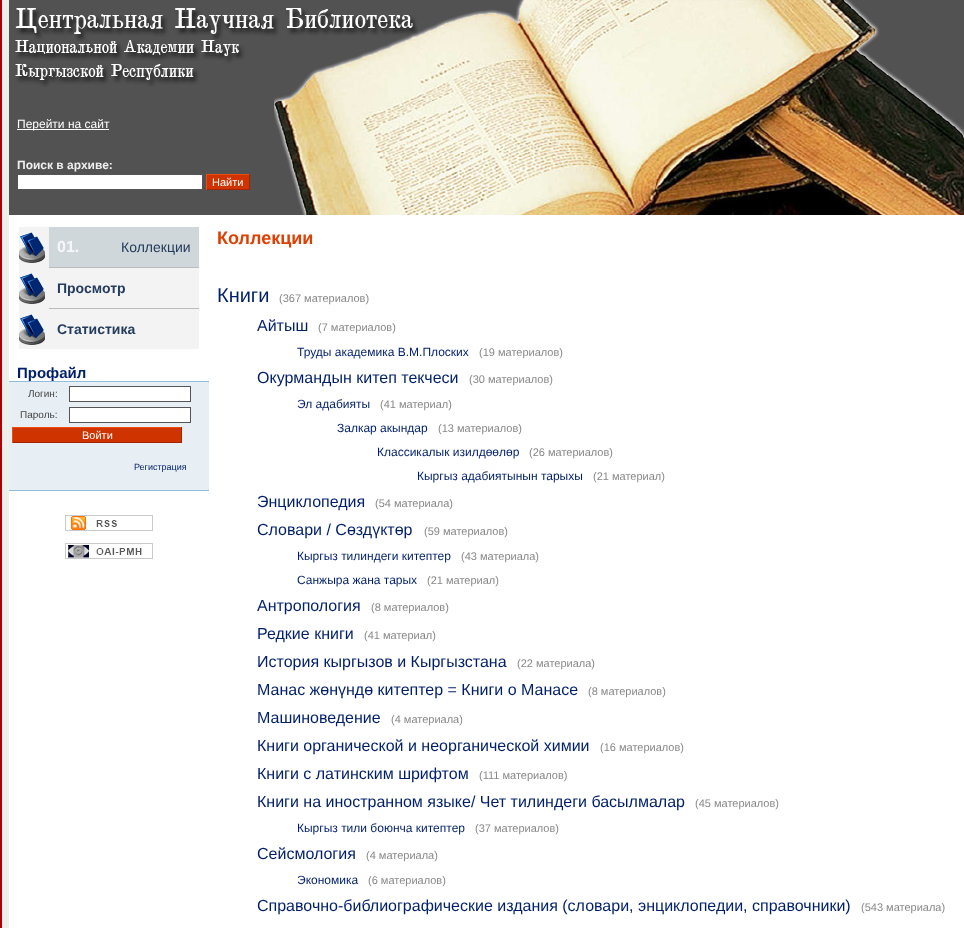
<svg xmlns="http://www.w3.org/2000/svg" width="964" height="928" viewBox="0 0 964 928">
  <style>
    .t1 { font: 12px Liberation Sans; fill: #fff; }
    .t2 { font: bold 12px Liberation Sans; fill: #f0f0f0; }
    .t3 { font: 11px Liberation Sans; fill: #fff; }
    .t4 { font: bold 16px Liberation Sans; fill: #f6f7f8; }
    .t5 { font: 14px Liberation Sans; fill: #243c5d; }
    .t6 { font: bold 14px Liberation Sans; fill: #243c5d; }
    .t7 { font: bold 15px Liberation Sans; fill: #001f6b; }
    .t8 { font: 10px Liberation Sans; fill: #444; }
    .t9 { font: 9px Liberation Sans; fill: #001f6b; }
    .t10 { font: bold 18px Liberation Sans; fill: #e03f02; }
    .t11 { font: 20px Liberation Sans; fill: #001f6b; }
    .t12 { font: 11px Liberation Sans; fill: #888; }
    .t13 { font: 16px Liberation Sans; fill: #001f6b; }
    .t14 { font: 12px Liberation Sans; fill: #001f6b; }
  </style>
  <rect width="100%" height="100%" fill="#eeeeea"/>
  <rect x="0" y="0" width="2" height="928" fill="#ab0004"/>
  <rect x="9" y="0" width="955" height="215" fill="#525252"/>
  <image x="274" y="0" width="690" height="215" href="images/1.png"/>
  <image x="15" y="8" width="403" height="79" href="images/2.png"/>
  <rect x="17" y="129" width="92" height="1" fill="#fff"/>
  <text x="17" y="128" class="t1">Перейти на сайт</text>
  <text x="17" y="169" class="t2">Поиск в архиве:</text>
  <rect x="17.5" y="174.5" width="185" height="15" fill="#fff" stroke="#555558"/>
  <rect x="207" y="175" width="42" height="14" fill="#ce3300"/>
  <rect x="206" y="174" width="44" height="1" fill="#ee4d10"/>
  <rect x="249" y="174" width="1" height="16" fill="#9f2601"/>
  <rect x="206" y="189" width="44" height="1" fill="#9f2601"/>
  <rect x="206" y="174" width="1" height="16" fill="#ee4d10"/>
  <text x="212" y="186" class="t3">Найти</text>
  <rect x="9" y="215" width="955" height="713" fill="#fff"/>
  <rect x="19" y="227" width="180" height="122" fill="#f3f3f3"/>
  <image x="19" y="232" width="26" height="31" href="images/3.png"/>
  <rect x="49" y="227" width="150" height="40" fill="#d0d7db"/>
  <text x="57" y="252" class="t4">01.</text>
  <text x="121" y="252" class="t5">Коллекции</text>
  <rect x="49" y="267" width="150" height="1" fill="#bbb"/>
  <image x="19" y="273" width="26" height="31" href="images/3.png"/>
  <text x="57" y="293" class="t6">Просмотр</text>
  <rect x="49" y="308" width="150" height="1" fill="#bbb"/>
  <image x="19" y="314" width="26" height="31" href="images/3.png"/>
  <text x="57" y="334" class="t6">Статистика</text>
  <rect x="9" y="381" width="200" height="1" fill="#92bedb"/>
  <text x="17" y="378" class="t7">Профайл</text>
  <rect x="9" y="382" width="200" height="108" fill="#e7eef4"/>
  <rect x="9" y="490" width="200" height="1" fill="#92bedb"/>
  <text x="28" y="397" class="t8">Логин:</text>
  <rect x="69.5" y="386.5" width="121" height="15" fill="#fff" stroke="#555558"/>
  <text x="20" y="418" class="t8">Пароль:</text>
  <rect x="69.5" y="407.5" width="121" height="15" fill="#fff" stroke="#555558"/>
  <rect x="13" y="428" width="168" height="14" fill="#ce3300"/>
  <rect x="12" y="427" width="170" height="1" fill="#ee4d10"/>
  <rect x="181" y="427" width="1" height="16" fill="#9f2601"/>
  <rect x="12" y="442" width="170" height="1" fill="#9f2601"/>
  <rect x="12" y="427" width="1" height="16" fill="#ee4d10"/>
  <text x="82" y="439" class="t3">Войти</text>
  <text x="134" y="470" class="t9">Регистрация</text>
  <image x="65" y="515" width="88" height="16" href="images/4.png"/>
  <image x="65" y="543" width="88" height="16" href="images/5.png"/>
  <text x="217" y="244" class="t10">Коллекции</text>
  <text x="217" y="302" class="t11">Книги</text>
  <text x="279" y="302" class="t12">(367 материалов)</text>
  <text x="257" y="331" class="t13">Айтыш</text>
  <text x="318" y="331" class="t12">(7 материалов)</text>
  <text x="297" y="356" class="t14">Труды академика В.М.Плоских</text>
  <text x="479" y="356" class="t12">(19 материалов)</text>
  <text x="257" y="383" class="t13">Окурмандын китеп текчеси</text>
  <text x="469" y="383" class="t12">(30 материалов)</text>
  <text x="297" y="408" class="t14">Эл адабияты</text>
  <text x="380" y="408" class="t12">(41 материал)</text>
  <text x="337" y="432" class="t14">Залкар акындар</text>
  <text x="438" y="432" class="t12">(13 материалов)</text>
  <text x="377" y="456" class="t14">Классикалык изилдөөлөр</text>
  <text x="529" y="456" class="t12">(26 материалов)</text>
  <text x="417" y="480" class="t14">Кыргыз адабиятынын тарыхы</text>
  <text x="593" y="480" class="t12">(21 материал)</text>
  <text x="257" y="507" class="t13">Энциклопедия</text>
  <text x="375" y="507" class="t12">(54 материала)</text>
  <text x="257" y="535" class="t13">Словари / Сөздүктөр</text>
  <text x="424" y="535" class="t12">(59 материалов)</text>
  <text x="297" y="560" class="t14">Кыргыз тилиндеги китептер</text>
  <text x="461" y="560" class="t12">(43 материала)</text>
  <text x="297" y="584" class="t14">Санжыра жана тарых</text>
  <text x="427" y="584" class="t12">(21 материал)</text>
  <text x="257" y="611" class="t13">Антропология</text>
  <text x="371" y="611" class="t12">(8 материалов)</text>
  <text x="257" y="639" class="t13">Редкие книги</text>
  <text x="364" y="639" class="t12">(41 материал)</text>
  <text x="257" y="667" class="t13">История кыргызов и Кыргызстана</text>
  <text x="517" y="667" class="t12">(22 материала)</text>
  <text x="257" y="695" class="t13">Манас жөнүндө китептер = Книги о Манасе</text>
  <text x="588" y="695" class="t12">(8 материалов)</text>
  <text x="257" y="723" class="t13">Машиноведение</text>
  <text x="391" y="723" class="t12">(4 материала)</text>
  <text x="257" y="751" class="t13">Книги органической и неорганической химии</text>
  <text x="600" y="751" class="t12">(16 материалов)</text>
  <text x="257" y="779" class="t13">Книги с латинским шрифтом</text>
  <text x="479" y="779" class="t12">(111 материалов)</text>
  <text x="257" y="807" class="t13">Книги на иностранном языке/ Чет тилиндеги басылмалар</text>
  <text x="695" y="807" class="t12">(45 материалов)</text>
  <text x="297" y="832" class="t14">Кыргыз тили боюнча китептер</text>
  <text x="475" y="832" class="t12">(37 материалов)</text>
  <text x="257" y="859" class="t13">Сейсмология</text>
  <text x="366" y="859" class="t12">(4 материала)</text>
  <text x="297" y="884" class="t14">Экономика</text>
  <text x="368" y="884" class="t12">(6 материалов)</text>
  <text x="257" y="911" class="t13">Справочно-библиографические издания (словари, энциклопедии, справочники)</text>
  <text x="861" y="911" class="t12">(543 материала)</text>
</svg>
